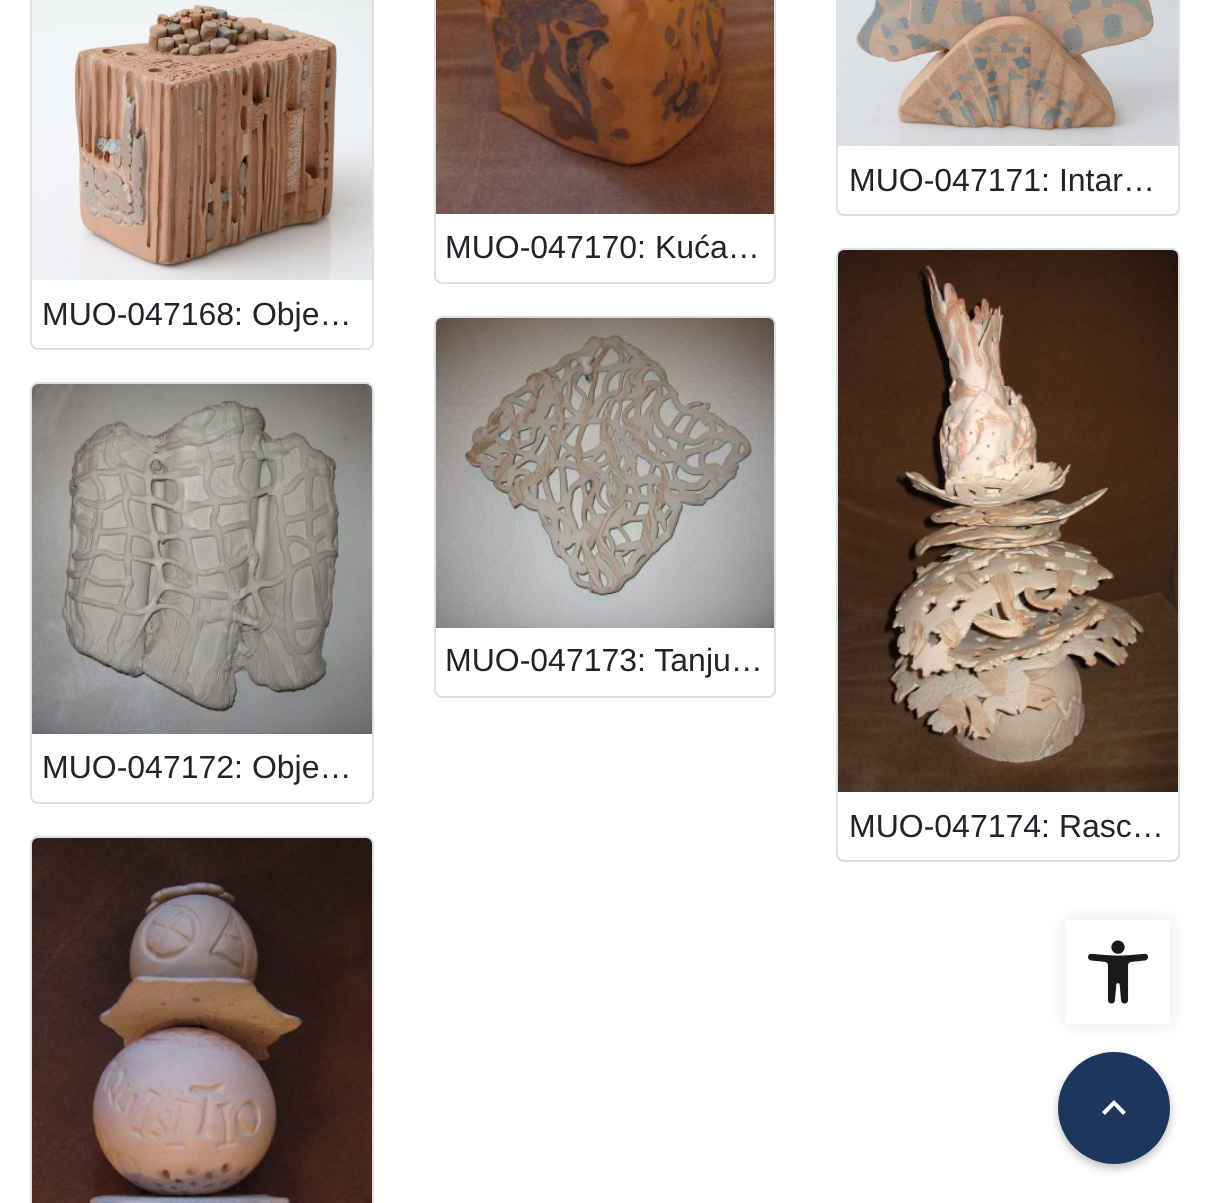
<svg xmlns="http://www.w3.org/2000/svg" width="1210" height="1203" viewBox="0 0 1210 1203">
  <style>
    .t1 { font: 32px Liberation Sans; fill: #212529; }
  </style>
  <defs>
    <clipPath id="clip1"><path d="M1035 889H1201V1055H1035ZM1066 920H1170V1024H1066Z" clip-rule="evenodd"/></clipPath>
  </defs>
  <rect width="100%" height="100%" fill="#fff"/>
  <rect x="837" y="-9" width="342" height="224" rx="7" fill="none" stroke="#dfdfdf" stroke-width="2"/>
  <image x="838" y="0" width="340" height="146" href="images/1.png"/>
  <text x="849" y="191" class="t1">MUO-047171: Intar…</text>
  <rect x="435" y="-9" width="340" height="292" rx="7" fill="none" stroke="#dfdfdf" stroke-width="2"/>
  <image x="436" y="0" width="338" height="214" href="images/2.png"/>
  <text x="445" y="258" class="t1">MUO-047170: Kuća…</text>
  <rect x="31" y="-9" width="342" height="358" rx="7" fill="none" stroke="#dfdfdf" stroke-width="2"/>
  <image x="32" y="0" width="340" height="280" href="images/3.png"/>
  <text x="42" y="325" class="t1">MUO-047168: Obje…</text>
  <rect x="435" y="317" width="340" height="380" rx="7" fill="none" stroke="#dfdfdf" stroke-width="2"/>
  <image x="436" y="318" width="338" height="310" href="images/4.png"/>
  <text x="445" y="671" class="t1">MUO-047173: Tanju…</text>
  <rect x="31" y="383" width="342" height="420" rx="7" fill="none" stroke="#dfdfdf" stroke-width="2"/>
  <image x="32" y="384" width="340" height="350" href="images/5.png"/>
  <text x="42" y="778" class="t1">MUO-047172: Obje…</text>
  <rect x="837" y="249" width="342" height="612" rx="7" fill="none" stroke="#dfdfdf" stroke-width="2"/>
  <image x="838" y="250" width="340" height="542" href="images/6.png"/>
  <text x="849" y="837" class="t1">MUO-047174: Rasc…</text>
  <rect x="31" y="837" width="342" height="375" rx="7" fill="none" stroke="#dfdfdf" stroke-width="2"/>
  <image x="32" y="838" width="340" height="365" href="images/7.png"/>
  <rect x="1058" y="1056" width="112" height="112" rx="56" fill="#00000042" filter="blur(5px)"/>
  <circle cx="1114" cy="1108" r="56" fill="#1f365c"/>
  <g clip-path="url(#clip1)">
    <rect x="1066" y="920" width="104" height="104" fill="#0000001a" filter="blur(10px)"/>
  </g>
  <image x="1088" y="940" width="61" height="64" href="images/8.png"/>
  <path d="M1105 1115L1114 1105.5L1123 1115L1126 1112L1114 1100L1102 1112Z" fill="#fff"/>
</svg>
